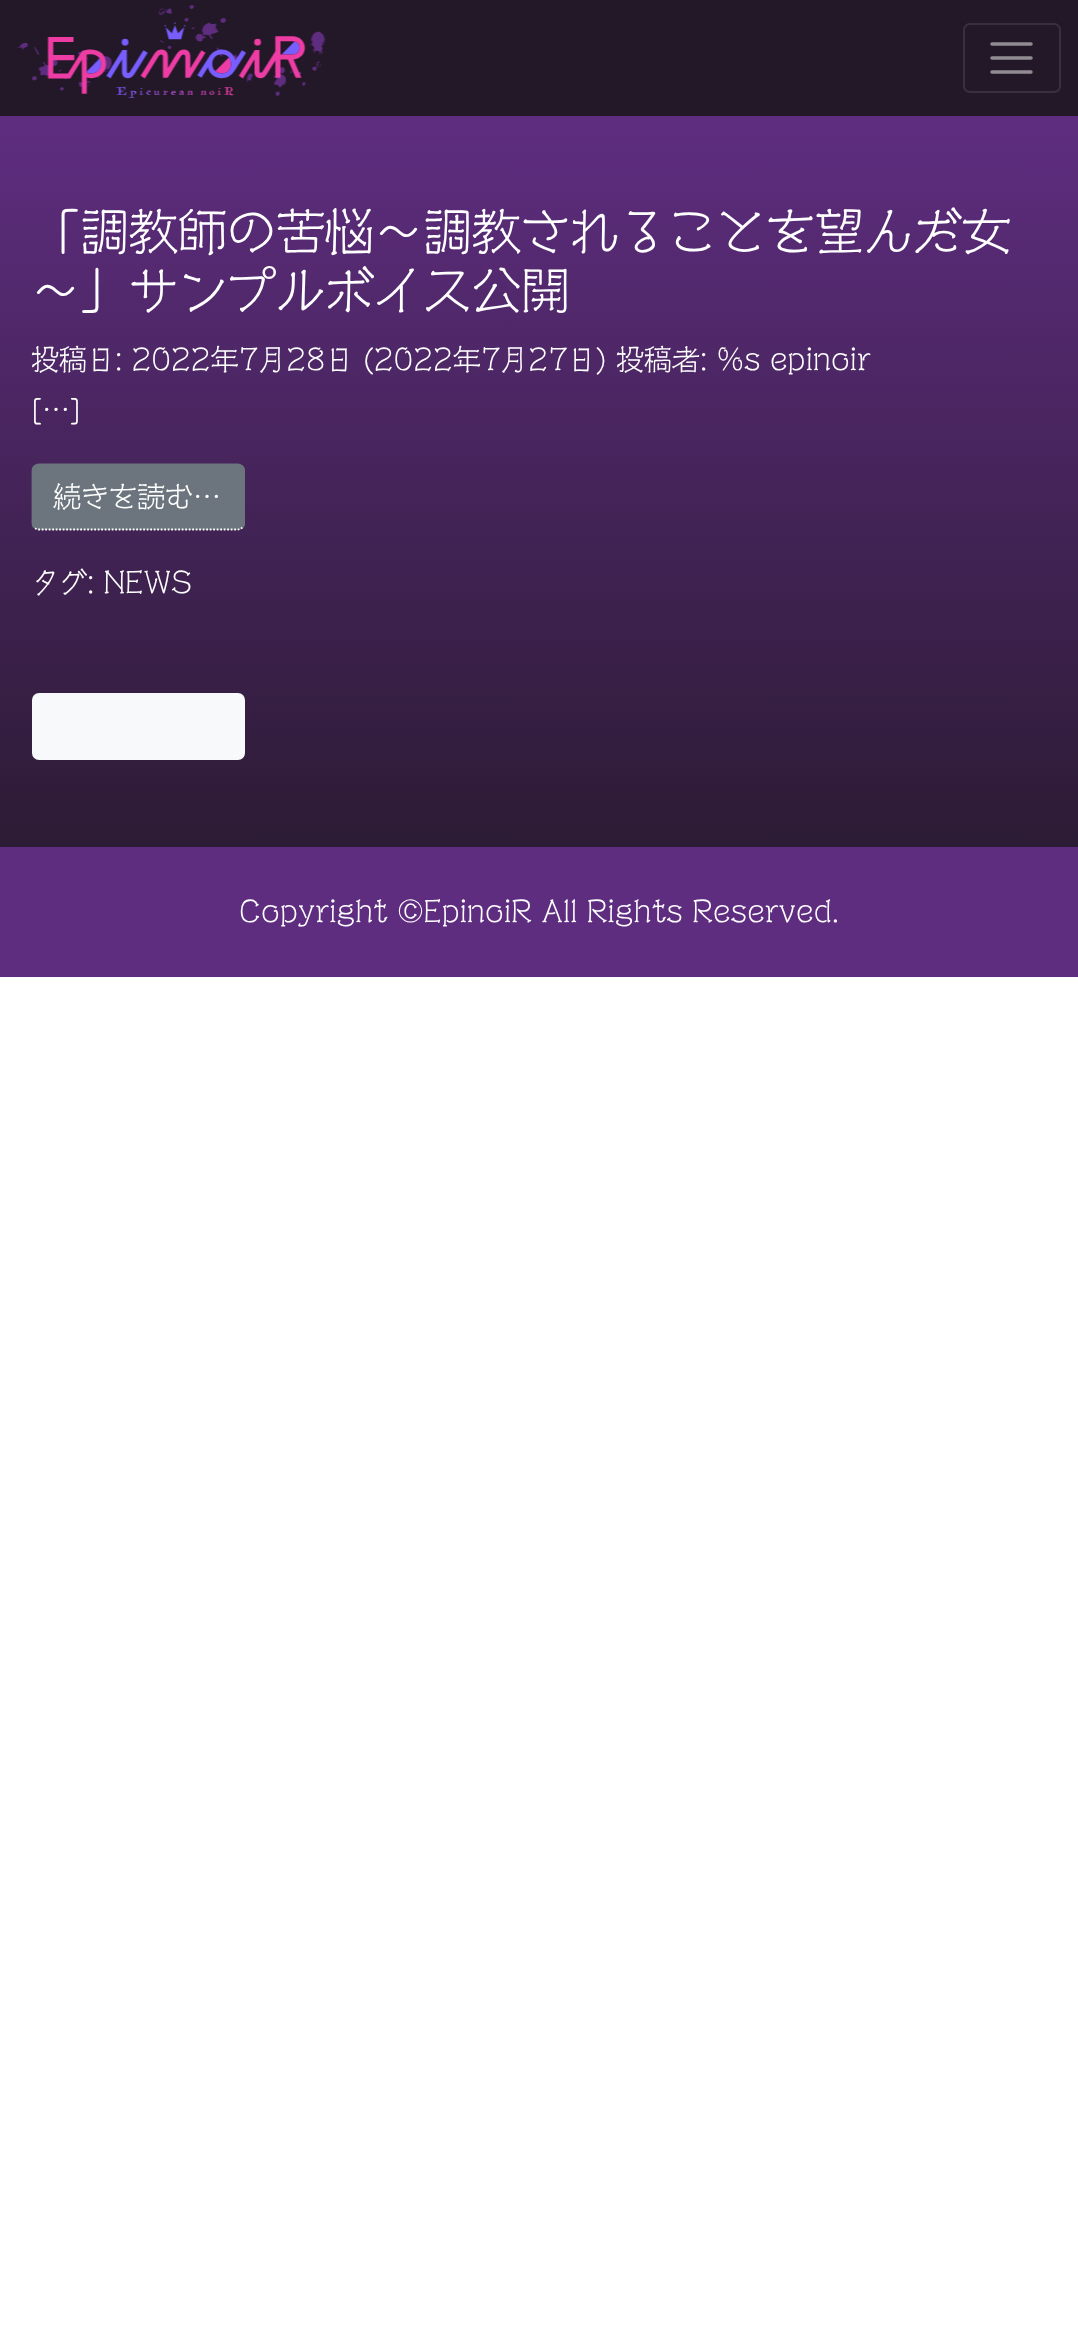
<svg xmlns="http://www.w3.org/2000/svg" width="1078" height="2345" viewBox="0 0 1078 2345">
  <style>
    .t1 { font: 300 49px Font; fill: #fff; }
    .t2 { font: 300 28px Font; fill: #fff; }
  </style>
  <defs>
    <linearGradient id="g1" gradientUnits="userSpaceOnUse" x1="539" y1="115" x2="539" y2="977"><stop offset="0" stop-color="#5f2d80"/><stop offset="1" stop-color="#231827"/></linearGradient>
  </defs>
  <rect width="100%" height="100%" fill="#fff"/>
  <rect x="0" y="116" width="1078" height="731" fill="url(#g1)"/>
  <rect x="0" y="0" width="1078" height="116" fill="#231827"/>
  <image x="17" y="5" width="309" height="93" href="images/1.png"/>
  <rect x="964" y="24" width="96" height="68" rx="6" fill="none" stroke="#392f3d" stroke-width="2"/>
  <path d="M992 44H1031M992 58H1031M992 72H1031" fill="none" stroke="#918c93" stroke-width="3.5" stroke-linecap="round"/>
  <text x="31" y="250" class="t1">「調教師の苦悩～調教されることを望んだ女</text>
  <text x="31" y="309" class="t1">～」サンプルボイス公開</text>
  <text x="31" y="370" class="t2">投稿日: 2022年7月28日 (2022年7月27日) 投稿者: %s epinoir</text>
  <text x="31" y="420" class="t2">[…]</text>
  <rect x="32" y="464" width="213" height="66" rx="7" fill="#6c757d"/>
  <path d="M242.5 527.5C241 528.5 239.5 529.5 238 529.5H38.5C37 529.5 35.5 528.5 34 527.5" fill="none" stroke="#fff" stroke-width="1.8" stroke-dasharray="1.75 1.75"/>
  <path d="M34 527.5C33 526.5 32.5 525 32.5 523V471C32.5 469 33 467.5 34 466.5C35.5 465.5 37 464.5 38.5 464.5H238C239.5 464.5 241 465.5 242.5 466.5C243.5 467.5 244 469 244 471V523C244 525 243.5 526.5 242.5 527.5" fill="none" stroke="#6c757d" stroke-width="1.8"/>
  <text x="53" y="507" class="t2">続きを読む…</text>
  <text x="31" y="593" class="t2">タグ: NEWS</text>
  <rect x="33" y="694" width="211" height="65" rx="6" fill="#f8f9fa" stroke="#f8f9fa" stroke-width="2"/>
  <rect x="0" y="847" width="1078" height="130" fill="#5f2d80"/>
  <text x="239" y="922" class="t2">Copyright ©EpinoiR All Rights Reserved.</text>
</svg>
